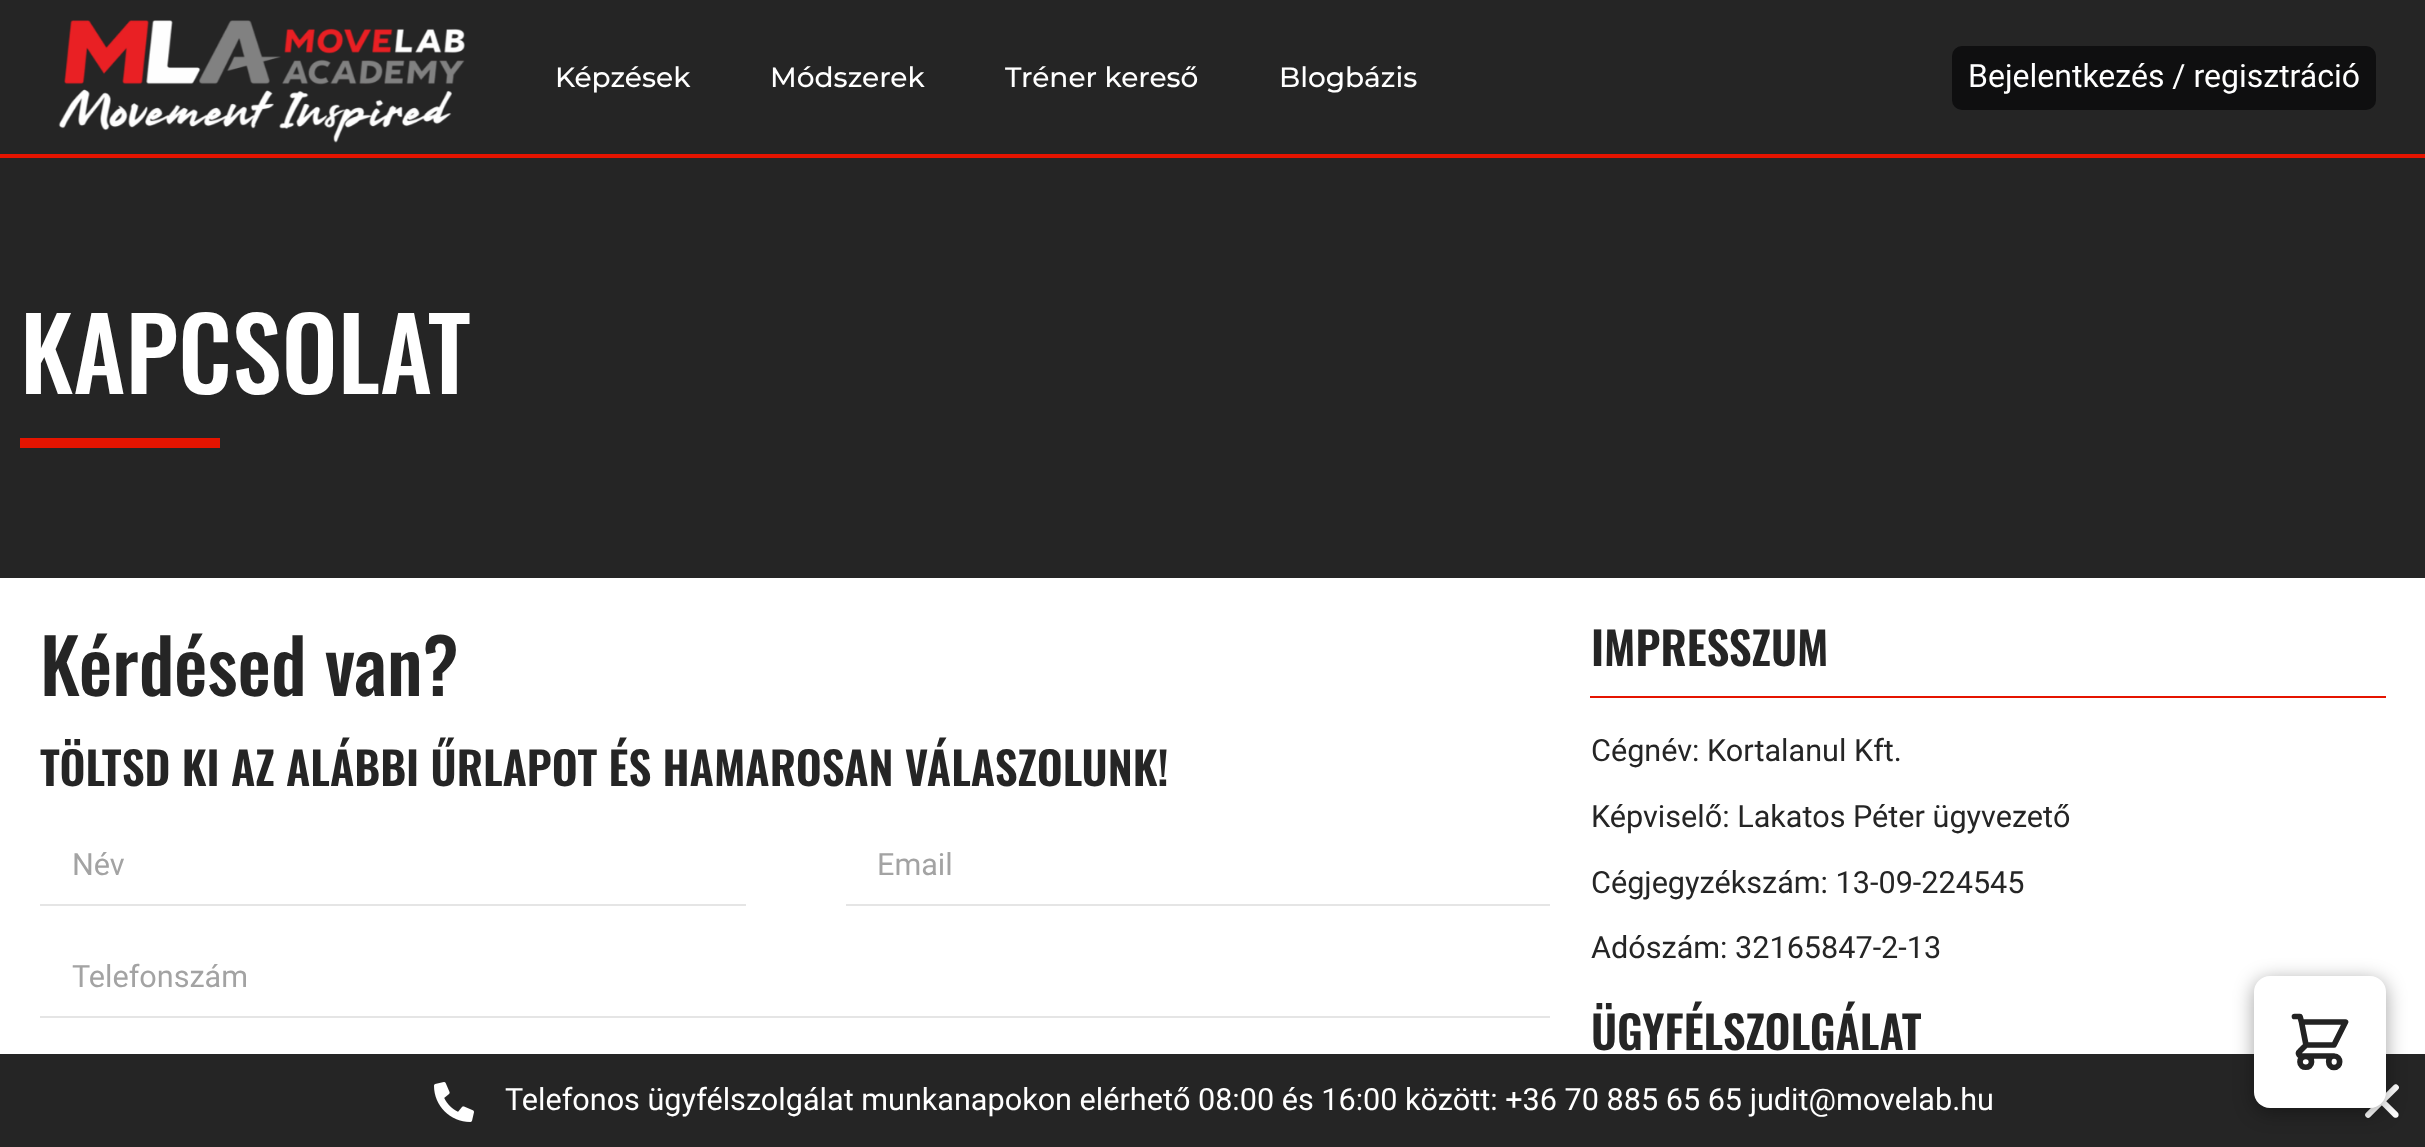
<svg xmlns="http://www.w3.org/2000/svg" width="2425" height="1147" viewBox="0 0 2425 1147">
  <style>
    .t1 { font: 500 28px Montserrat; fill: #fff; }
    .t2 { font: 32px Roboto; fill: #fff; }
    .t3 { font: 500 100px Oswald; fill: #fff; }
    .t4 { font: 500 75px Oswald; fill: #252525; }
    .t5 { font: 600 45.2px Oswald; fill: #252525; }
    .t6 { font: 30.6px Roboto; fill: #a3a3a3; }
    .t7 { font: 30.6px Roboto; fill: #252525; }
    .t8 { font: 30.6px Roboto; fill: #fff; }
  </style>
  <rect width="100%" height="100%" fill="#fff"/>
  <rect x="0" y="0" width="2425" height="154" fill="#252525"/>
  <rect x="0" y="154" width="2425" height="4" fill="#e51400"/>
  <image x="58" y="20" width="407" height="123" href="images/1.png"/>
  <text x="555" y="87" class="t1">Képzések</text>
  <text x="770" y="87" class="t1">Módszerek</text>
  <text x="1005" y="87" class="t1">Tréner kereső</text>
  <text x="1279" y="87" class="t1">Blogbázis</text>
  <rect x="1952" y="46" width="424" height="64" rx="10" fill="#0f0f10"/>
  <text x="1968" y="87" class="t2">Bejelentkezés / regisztráció</text>
  <rect x="0" y="158" width="2425" height="420" fill="#252525"/>
  <text x="20" y="394" class="t3">KAPCSOLAT</text>
  <rect x="20" y="438" width="200" height="10" fill="#e51400"/>
  <text x="40" y="696" class="t4">Kérdésed van?</text>
  <text x="40" y="786" class="t5">TÖLTSD KI AZ ALÁBBI ŰRLAPOT ÉS HAMAROSAN VÁLASZOLUNK!</text>
  <rect x="40" y="904" width="706" height="2" fill="#e5e5e5"/>
  <text x="72" y="875" class="t6">Név</text>
  <rect x="846" y="904" width="704" height="2" fill="#e5e5e5"/>
  <text x="877" y="875" class="t6">Email</text>
  <rect x="40" y="1016" width="1510" height="2" fill="#e5e5e5"/>
  <text x="72" y="987" class="t6">Telefonszám</text>
  <rect x="1590" y="696" width="796" height="2" fill="#e51400"/>
  <text x="1591" y="666" class="t5">IMPRESSZUM</text>
  <text x="1591" y="761" class="t7">Cégnév: Kortalanul Kft.</text>
  <text x="1591" y="827" class="t7">Képviselő: Lakatos Péter ügyvezető</text>
  <text x="1591" y="893" class="t7">Cégjegyzékszám: 13-09-224545</text>
  <text x="1591" y="958" class="t7">Adószám: 32165847-2-13</text>
  <text x="1591" y="1050" class="t5">ÜGYFÉLSZOLGÁLAT</text>
  <rect x="0" y="1054" width="2425" height="93" fill="#252525"/>
  <image x="2365" y="1084" width="34" height="34" href="images/3.png"/>
  <rect x="2254" y="980" width="132" height="132" rx="16" fill="#0000005e" filter="blur(10px)"/>
  <rect x="2254" y="976" width="132" height="132" rx="16" fill="#fff"/>
  <path d="M2294.5 1016.5H2300L2301.5 1022M2306 1045H2334L2345.5 1022H2301.5M2306 1045L2301.5 1022M2306 1045L2299.5 1051.5C2297.5 1053 2299 1056 2301.5 1056H2334M2334 1056C2327 1056 2327 1067.5 2334 1067.5C2341.5 1067.5 2341.5 1056 2334 1056ZM2311.5 1062C2311.5 1069 2300 1069 2300 1062C2300 1054.5 2311.5 1054.5 2311.5 1062Z" fill="none" stroke="#222" stroke-width="5.7" stroke-linecap="round" stroke-linejoin="round"/>
  <image x="434" y="1082" width="40" height="40" href="images/2.png"/>
  <text x="505" y="1110" class="t8">Telefonos ügyfélszolgálat munkanapokon elérhető 08:00 és 16:00 között: +36 70 885 65 65 judit@movelab.hu</text>
</svg>
